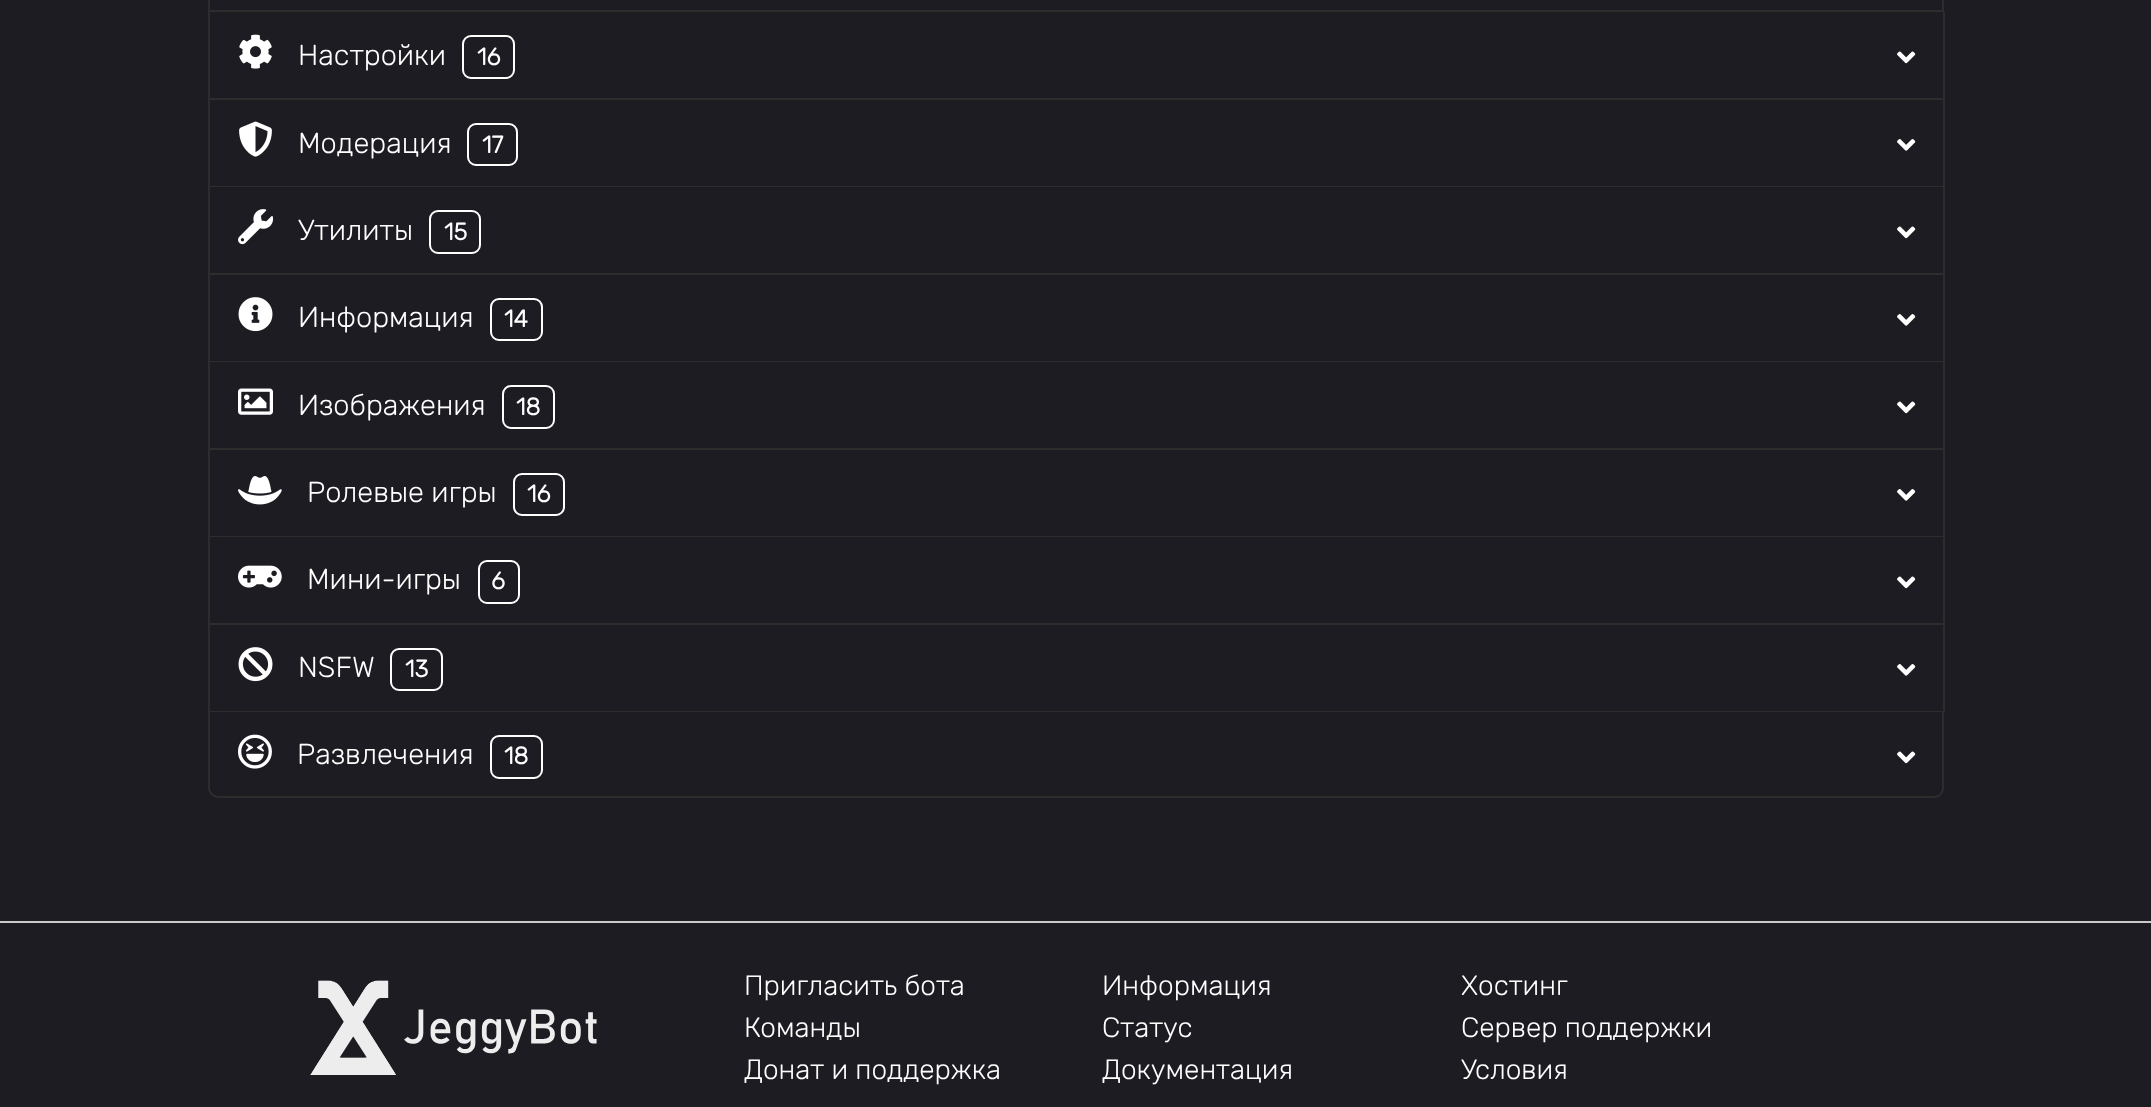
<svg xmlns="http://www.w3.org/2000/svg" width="2151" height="1107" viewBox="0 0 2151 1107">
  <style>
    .t1 { font: 300 29px Rubik; fill: #fff; }
    .t2 { font: bold 24px Rubik; fill: #fff; }
    .t3 { font: 300 28px Rubik; fill: #fff; }
  </style>
  <rect width="100%" height="100%" fill="#1c1c22"/>
  <rect x="209" y="-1" width="1734" height="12" fill="none" stroke="#2d2d2d" stroke-width="2"/>
  <rect x="1943" y="12" width="2" height="700" fill="#2d2d2d"/>
  <rect x="208" y="98" width="1736" height="2" fill="#2d2d2d"/>
  <rect x="208" y="12" width="2" height="88" fill="#2d2d2d"/>
  <image x="239" y="34" width="33" height="35" href="images/1.png"/>
  <text x="298" y="65" class="t1">Настройки</text>
  <rect x="463" y="36" width="51" height="42" rx="8" fill="none" stroke="#fff" stroke-width="2"/>
  <text x="477" y="65" class="t2">16</text>
  <image x="1897" y="51" width="19" height="13" href="images/2.png"/>
  <rect x="208" y="186" width="1736" height="1" fill="#2d2d2d"/>
  <rect x="208" y="100" width="2" height="87" fill="#2d2d2d"/>
  <image x="239" y="121" width="33" height="36" href="images/3.png"/>
  <text x="298" y="153" class="t1">Модерация</text>
  <rect x="468" y="124" width="49" height="41" rx="8" fill="none" stroke="#fff" stroke-width="2"/>
  <text x="482" y="153" class="t2">17</text>
  <image x="1897" y="139" width="19" height="12" href="images/4.png"/>
  <rect x="208" y="273" width="1736" height="2" fill="#2d2d2d"/>
  <rect x="208" y="187" width="2" height="88" fill="#2d2d2d"/>
  <image x="238" y="209" width="36" height="36" href="images/5.png"/>
  <text x="298" y="240" class="t1">Утилиты</text>
  <rect x="430" y="211" width="50" height="42" rx="8" fill="none" stroke="#fff" stroke-width="2"/>
  <text x="444" y="240" class="t2">15</text>
  <image x="1897" y="226" width="19" height="13" href="images/6.png"/>
  <rect x="208" y="361" width="1736" height="1" fill="#2d2d2d"/>
  <rect x="208" y="275" width="2" height="87" fill="#2d2d2d"/>
  <image x="238" y="297" width="35" height="35" href="images/7.png"/>
  <text x="298" y="327" class="t1">Информация</text>
  <rect x="491" y="299" width="51" height="41" rx="8" fill="none" stroke="#fff" stroke-width="2"/>
  <text x="504" y="327" class="t2">14</text>
  <image x="1897" y="314" width="19" height="12" href="images/4.png"/>
  <rect x="208" y="448" width="1736" height="2" fill="#2d2d2d"/>
  <rect x="208" y="362" width="2" height="88" fill="#2d2d2d"/>
  <image x="238" y="388" width="35" height="27" href="images/8.png"/>
  <text x="298" y="415" class="t1">Изображения</text>
  <rect x="503" y="386" width="51" height="42" rx="8" fill="none" stroke="#fff" stroke-width="2"/>
  <text x="516" y="415" class="t2">18</text>
  <image x="1897" y="401" width="19" height="13" href="images/6.png"/>
  <rect x="208" y="536" width="1736" height="1" fill="#2d2d2d"/>
  <rect x="208" y="450" width="2" height="87" fill="#2d2d2d"/>
  <image x="238" y="476" width="44" height="29" href="images/9.png"/>
  <text x="307" y="502" class="t1">Ролевые игры</text>
  <rect x="514" y="474" width="50" height="41" rx="8" fill="none" stroke="#fff" stroke-width="2"/>
  <text x="527" y="502" class="t2">16</text>
  <image x="1897" y="489" width="19" height="12" href="images/4.png"/>
  <rect x="208" y="623" width="1736" height="2" fill="#2d2d2d"/>
  <rect x="208" y="537" width="2" height="88" fill="#2d2d2d"/>
  <image x="238" y="565" width="44" height="23" href="images/10.png"/>
  <text x="307" y="589" class="t1">Мини-игры</text>
  <rect x="479" y="561" width="40" height="42" rx="8" fill="none" stroke="#fff" stroke-width="2"/>
  <text x="491" y="589" class="t2">6</text>
  <image x="1897" y="576" width="19" height="13" href="images/6.png"/>
  <rect x="208" y="711" width="1736" height="1" fill="#2d2d2d"/>
  <rect x="208" y="625" width="2" height="87" fill="#2d2d2d"/>
  <image x="238" y="647" width="35" height="35" href="images/11.png"/>
  <text x="298" y="677" class="t1">NSFW</text>
  <rect x="391" y="649" width="51" height="41" rx="8" fill="none" stroke="#fff" stroke-width="2"/>
  <text x="405" y="677" class="t2">13</text>
  <image x="1897" y="664" width="19" height="12" href="images/4.png"/>
  <path d="M208 712H1944V788C1944 793 1940 798 1934 798H219C213 798 208 793 208 788ZM210 712H1942V788C1942 792 1939 796 1934 796H219C214 796 210 792 210 788Z" fill="#2d2d2d" fill-rule="evenodd"/>
  <image x="238" y="734" width="34" height="35" href="images/12.png"/>
  <text x="297" y="764" class="t1">Развлечения</text>
  <rect x="491" y="736" width="51" height="42" rx="8" fill="none" stroke="#fff" stroke-width="2"/>
  <text x="504" y="764" class="t2">18</text>
  <image x="1897" y="751" width="19" height="13" href="images/6.png"/>
  <rect x="0" y="921" width="2151" height="2" fill="#cacaca"/>
  <image x="310" y="980" width="287" height="95" href="images/13.png"/>
  <text x="744" y="995" class="t3">Пригласить бота</text>
  <text x="744" y="1037" class="t3">Команды</text>
  <text x="744" y="1079" class="t3">Донат и поддержка</text>
  <text x="1102" y="995" class="t3">Информация</text>
  <text x="1102" y="1037" class="t3">Статус</text>
  <text x="1102" y="1079" class="t3">Документация</text>
  <text x="1461" y="995" class="t3">Хостинг</text>
  <text x="1461" y="1037" class="t3">Сервер поддержки</text>
  <text x="1461" y="1079" class="t3">Условия</text>
</svg>
